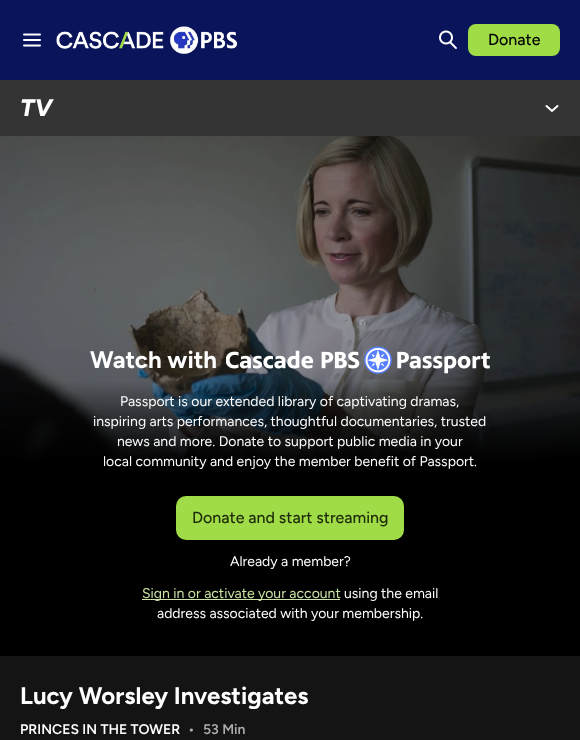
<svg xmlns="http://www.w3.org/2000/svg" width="580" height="740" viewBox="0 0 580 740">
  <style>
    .t1 { font: 500 16px Figtree; fill: #000; }
    .t2 { font: italic 800 24px Figtree; fill: #fff; }
    .t3 { font: bold 24px Figtree; fill: #fff; }
    .t4 { font: 14px Figtree; fill: #fff; }
    .t5 { font: 500 16px Figtree; fill: #1d2b08; }
    .t6 { font: 14px Figtree; fill: #cce5a6; }
    .t7 { font: 600 14px Figtree; fill: #fff; }
    .t8 { font: 600 14px Figtree; fill: #adadad; }
  </style>
  <rect width="100%" height="100%" fill="#0a145a"/>
  <image x="23" y="33" width="18" height="14" href="images/1.png"/>
  <image x="56" y="26" width="182" height="28" href="images/2.png"/>
  <image x="439" y="30" width="18" height="19" href="images/3.png"/>
  <rect x="468" y="24" width="92" height="32" rx="8" fill="#9fdc45"/>
  <text x="488" y="45" class="t1">Donate</text>
  <rect x="0" y="80" width="580" height="56" fill="#343434"/>
  <text x="20" y="116" class="t2">TV</text>
  <path d="M557.5 106L552 111L546.5 106" fill="none" stroke="#fff" stroke-width="2" stroke-linecap="round"/>
  <rect x="0" y="462" width="580" height="194" fill="#000"/>
  <image x="0" y="136" width="580" height="326" href="images/4.png"/>
  <text x="90" y="368" class="t3">Watch with</text>
  <image x="226" y="346" width="264" height="28" href="images/5.png"/>
  <text x="120" y="406" class="t4">Passport is our extended library of captivating dramas,</text>
  <text x="93" y="426" class="t4">inspiring arts performances, thoughtful documentaries, trusted</text>
  <text x="117" y="446" class="t4">news and more. Donate to support public media in your</text>
  <text x="103" y="466" class="t4">local community and enjoy the member benefit of Passport.</text>
  <rect x="176" y="496" width="228" height="44" rx="10" fill="#a0dc47"/>
  <text x="192" y="523" class="t5">Donate and start streaming</text>
  <text x="230" y="566" class="t4">Already a member?</text>
  <rect x="142" y="599" width="198" height="1" fill="#cce5a6"/>
  <text x="142" y="598" class="t6">Sign in or activate your account</text>
  <text x="344" y="598" class="t4">using the email</text>
  <text x="157" y="618" class="t4">address associated with your membership.</text>
  <rect x="0" y="656" width="580" height="84" fill="#141414"/>
  <text x="20" y="704" class="t3">Lucy Worsley Investigates</text>
  <text x="20" y="734" class="t7">PRINCES IN THE TOWER</text>
  <text x="188" y="734" class="t8">•</text>
  <text x="203" y="734" class="t8">53 Min</text>
</svg>
